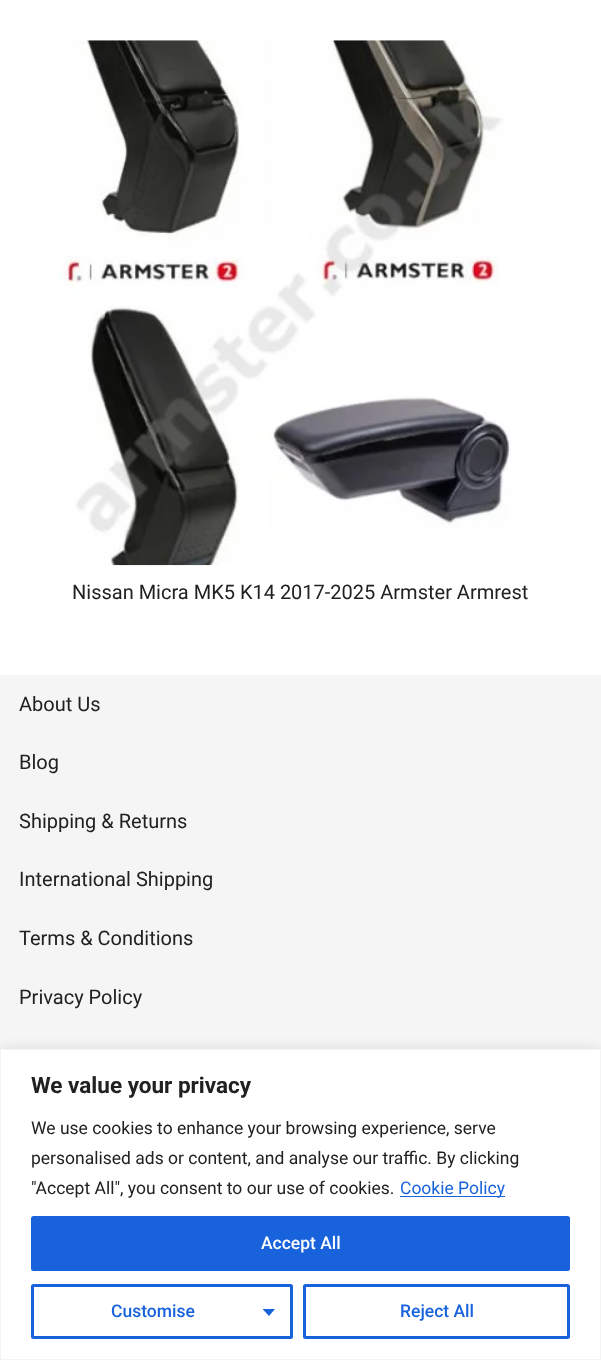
<svg xmlns="http://www.w3.org/2000/svg" width="601" height="1360" viewBox="0 0 601 1360">
  <style>
    .t1 { font: 20px Roboto; fill: #212121; }
    .t2 { font: bold 22.5px Roboto; fill: #212121; }
    .t3 { font: 17.5px Roboto; fill: #212121; }
    .t4 { font: 17.5px Roboto; fill: #1863dc; }
    .t5 { font: 500 17.5px Roboto; fill: #fff; }
    .t6 { font: 500 17.5px Roboto; fill: #1863dc; }
  </style>
  <rect width="100%" height="100%" fill="#fff"/>
  <image x="58" y="40" width="453" height="526" href="images/1.png"/>
  <text x="72" y="599" class="t1">Nissan Micra MK5 K14 2017-2025 Armster Armrest</text>
  <rect x="0" y="675" width="601" height="374" fill="#f5f5f5"/>
  <text x="19" y="711" class="t1">About Us</text>
  <text x="19" y="769" class="t1">Blog</text>
  <text x="19" y="828" class="t1">Shipping &amp; Returns</text>
  <text x="19" y="886" class="t1">International Shipping</text>
  <text x="19" y="945" class="t1">Terms &amp; Conditions</text>
  <text x="19" y="1004" class="t1">Privacy Policy</text>
  <rect x="0" y="1048" width="601" height="311" fill="#acabab4d" filter="blur(6px)"/>
  <rect x="0.5" y="1049.5" width="600" height="310" fill="#fff" stroke="#f4f4f4"/>
  <text x="31" y="1093" class="t2">We value your privacy</text>
  <text x="31" y="1134" class="t3">We use cookies to enhance your browsing experience, serve</text>
  <text x="31" y="1164" class="t3">personalised ads or content, and analyse our traffic. By clicking</text>
  <text x="31" y="1194" class="t3">"Accept All", you consent to our use of cookies.</text>
  <rect x="400" y="1196" width="105" height="1" fill="#1863dc"/>
  <text x="400" y="1194" class="t4">Cookie Policy</text>
  <rect x="32.5" y="1217.5" width="536" height="52" rx="1" fill="#1863dc" stroke="#1863dc" stroke-width="3"/>
  <text x="261" y="1249" class="t5">Accept All</text>
  <rect x="32.5" y="1285.5" width="259" height="52" rx="1" fill="none" stroke="#1863dc" stroke-width="3"/>
  <text x="111" y="1317" class="t6">Customise</text>
  <path d="M262.5 1309H275L269 1316Z" fill="#1863dc"/>
  <rect x="304.5" y="1285.5" width="264" height="52" rx="1" fill="none" stroke="#1863dc" stroke-width="3"/>
  <text x="400" y="1317" class="t6">Reject All</text>
</svg>
